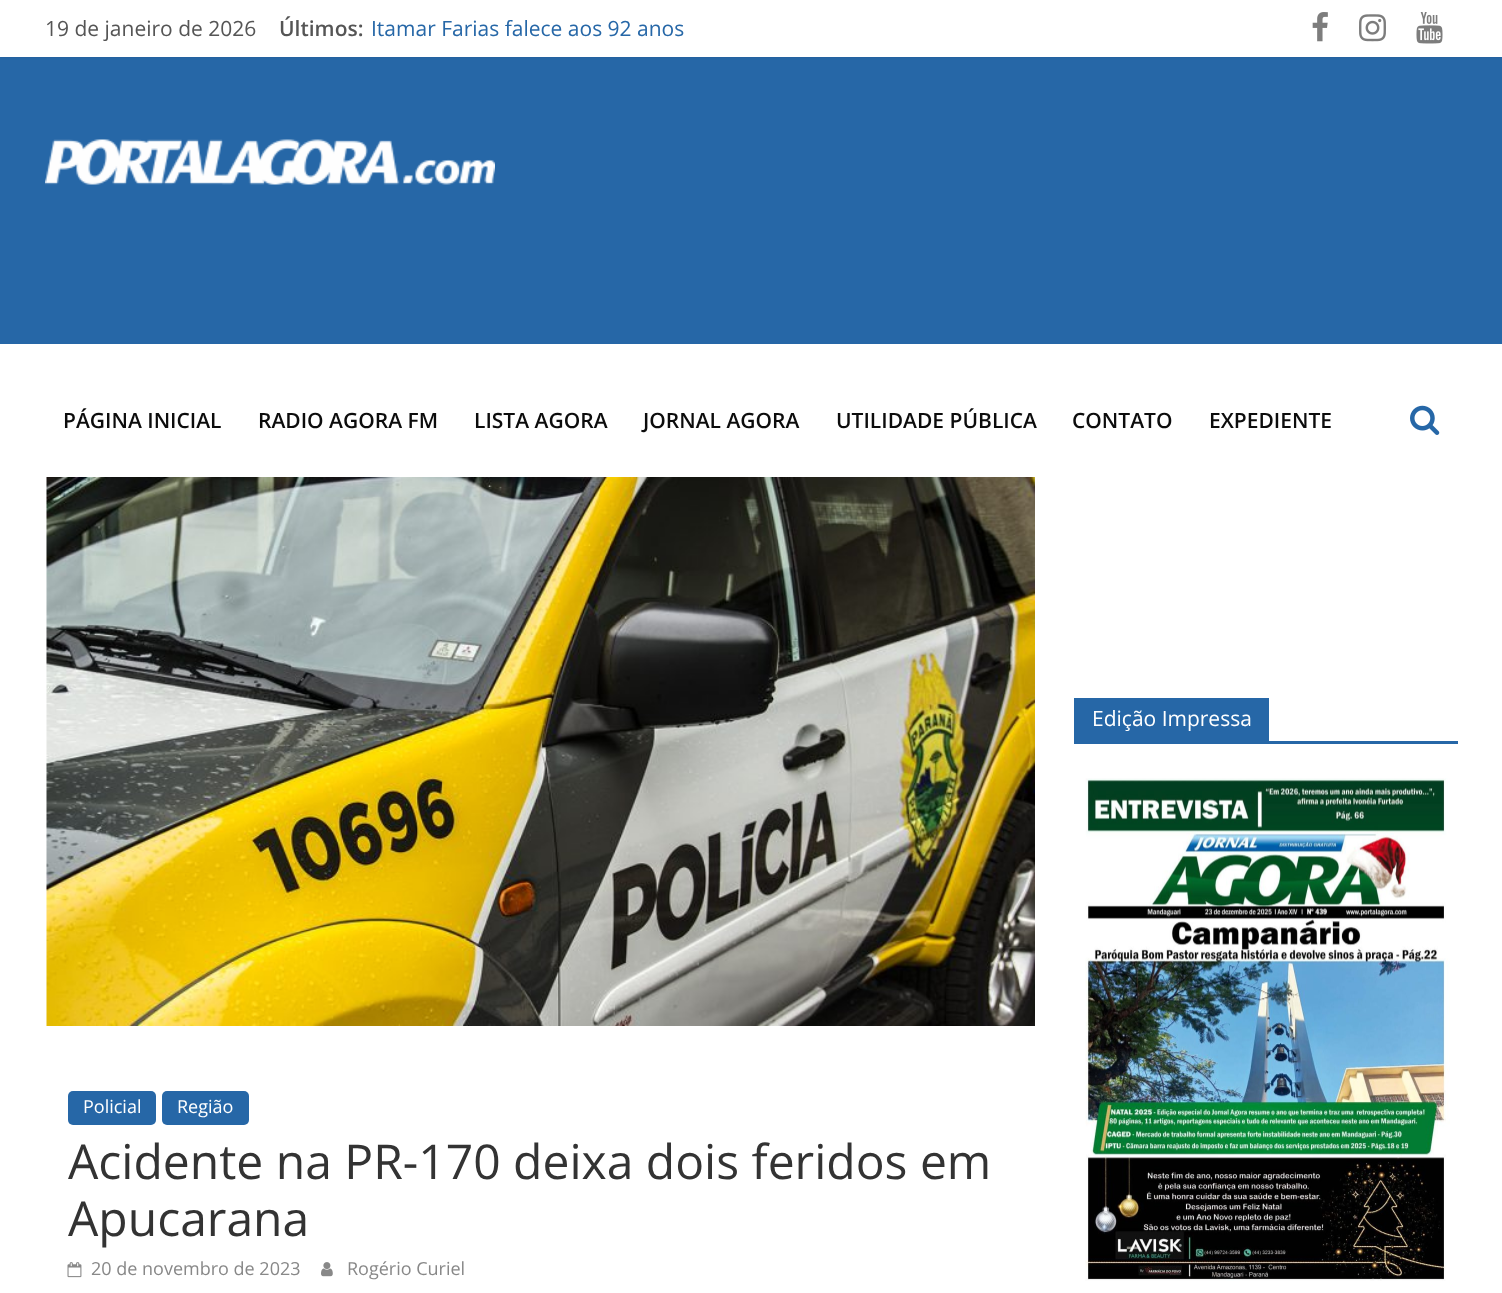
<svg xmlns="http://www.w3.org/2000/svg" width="1502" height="1293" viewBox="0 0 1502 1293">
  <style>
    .t1 { font: 21px Open Sans; fill: #555; }
    .t2 { font: 600 21px Open Sans; fill: #555; }
    .t3 { font: 21px Open Sans; fill: #2667a7; }
    .t4 { font: 600 21px Open Sans; fill: #0c0c0c; }
    .t5 { font: 21px Open Sans; fill: #fff; }
    .t6 { font: 18px Open Sans; fill: #fff; }
    .t7 { font: 48px Open Sans; fill: #333; }
    .t8 { font: 18px Open Sans; fill: #888; }
  </style>
  <rect width="100%" height="100%" fill="#2667a7"/>
  <rect x="0" y="0" width="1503" height="57" fill="#0000001a" filter="blur(1.5px)"/>
  <rect x="0" y="0" width="1502" height="57" fill="#fff"/>
  <text x="45" y="36" class="t1">19 de janeiro de 2026</text>
  <text x="279" y="36" class="t2">Últimos:</text>
  <text x="371" y="36" class="t3">Itamar Farias falece aos 92 anos</text>
  <image x="1312" y="12" width="16" height="30" href="images/1.png"/>
  <image x="1359" y="14" width="27" height="28" href="images/2.png"/>
  <image x="1416" y="12" width="27" height="32" href="images/3.png"/>
  <image x="45" y="139" width="450" height="46" href="images/4.png"/>
  <rect x="0" y="344" width="1502" height="949" fill="#fff"/>
  <text x="63" y="428" class="t4">PÁGINA INICIAL</text>
  <text x="258" y="428" class="t4">RADIO AGORA FM</text>
  <text x="474" y="428" class="t4">LISTA AGORA</text>
  <text x="643" y="428" class="t4">JORNAL AGORA</text>
  <text x="836" y="428" class="t4">UTILIDADE PÚBLICA</text>
  <text x="1072" y="428" class="t4">CONTATO</text>
  <text x="1209" y="428" class="t4">EXPEDIENTE</text>
  <image x="1410" y="405" width="30" height="30" href="images/5.png"/>
  <rect x="1074" y="741" width="384" height="3" fill="#2667a7"/>
  <rect x="1074" y="698" width="195" height="43" fill="#2667a7"/>
  <text x="1092" y="726" class="t5">Edição Impressa</text>
  <image x="1085" y="778" width="365" height="503" href="images/6.png"/>
  <image x="46" y="477" width="989" height="549" href="images/7.png"/>
  <rect x="68" y="1091" width="88" height="34" rx="5" fill="#2667a7"/>
  <text x="83" y="1113" class="t6">Policial</text>
  <rect x="162" y="1091" width="87" height="34" rx="5" fill="#2667a7"/>
  <text x="177" y="1113" class="t6">Região</text>
  <text x="68" y="1179" class="t7">Acidente na PR-170 deixa dois feridos em</text>
  <text x="68" y="1236" class="t7">Apucarana</text>
  <image x="67" y="1262" width="15" height="16" href="images/8.png"/>
  <text x="91" y="1275" class="t8">20 de novembro de 2023</text>
  <image x="321" y="1262" width="12" height="15" href="images/9.png"/>
  <text x="347" y="1275" class="t8">Rogério Curiel</text>
</svg>
